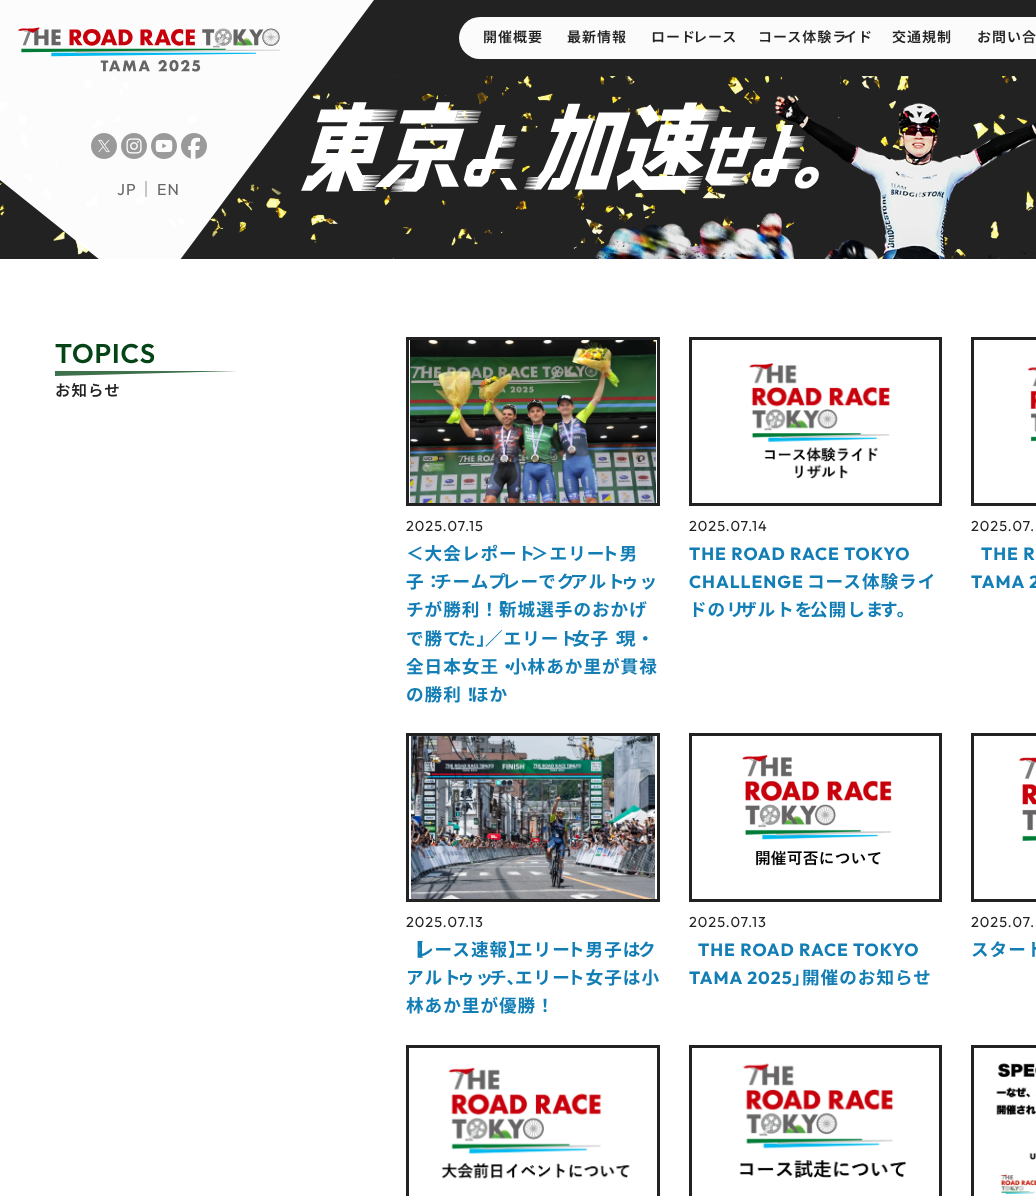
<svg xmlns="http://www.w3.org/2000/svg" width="1036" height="1196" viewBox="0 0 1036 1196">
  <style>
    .t1 { font: 600 14px Noto Sans JP; letter-spacing: 1px; fill: #222; }
    .t2 { font: 16px Outfit; letter-spacing: 1px; fill: #666; }
    .t3 { font: 16px Noto Sans JP; letter-spacing: 1px; fill: #666; }
    .t4 { font: 600 27px Outfit; letter-spacing: 1px; fill: #054416; }
    .t5 { font: 600 15.5px Noto Sans JP; letter-spacing: 1px; fill: #222; }
    .t6 { font: 14.5px Outfit; letter-spacing: 1px; fill: #222; }
    .t7 { font: bold 17.6px Noto Sans JP; letter-spacing: 1px; fill: #127eb5; }
    .t8 { font: bold 17.6px Outfit; letter-spacing: 1px; fill: #127eb5; }
  </style>
  <rect width="100%" height="100%" fill="#222"/>
  <image x="0" y="76" width="1034" height="183" href="images/6.png"/>
  <rect x="0" y="259" width="1036" height="937" fill="#fff"/>
  <path d="M0 0H374L150 300L0 180Z" fill="#fffffffc"/>
  <rect x="459" y="17" width="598" height="42" rx="21" fill="#fbfbfb"/>
  <text x="483" y="42" class="t1">開催概要</text>
  <text x="567" y="42" class="t1">最新情報</text>
  <text x="651" y="42" class="t1">ロード</text>
  <text x="693" y="42" class="t1">レース</text>
  <text x="758" y="42" class="t1">コース体験ラ</text>
  <text x="843" y="42" class="t1">イド</text>
  <text x="892" y="42" class="t1">交通規制</text>
  <text x="977" y="42" class="t1">お問い合</text>
  <image x="18" y="27" width="262" height="45" href="images/1.png"/>
  <image x="91" y="133" width="26" height="26" href="images/2.png"/>
  <image x="121" y="133" width="26" height="26" href="images/3.png"/>
  <image x="151" y="133" width="26" height="26" href="images/4.png"/>
  <image x="181" y="133" width="26" height="26" href="images/5.png"/>
  <text x="117" y="195" class="t2">JP</text>
  <text x="138" y="195" class="t3">｜</text>
  <text x="157" y="195" class="t2">EN</text>
  <image x="301" y="102" width="518" height="90" href="images/8.png"/>
  <image x="593" y="95" width="443" height="164" href="images/7.png"/>
  <text x="55" y="363" class="t4">TOPICS</text>
  <path d="M55 371V376L238 371Z" fill="#3f714d"/>
  <text x="55" y="396" class="t5">お知らせ</text>
  <rect x="407.5" y="338.5" width="251" height="166" fill="none" stroke="#222" stroke-width="3"/>
  <image x="410" y="340" width="246" height="163" href="images/9.png"/>
  <text x="406" y="531" class="t6">2025.07.15</text>
  <text x="406" y="560" class="t7">＜大会レポート</text>
  <text x="531" y="560" class="t7">＞エリー</text>
  <text x="601" y="560" class="t7">ト男</text>
  <text x="406" y="588" class="t7">子：</text>
  <text x="434" y="588" class="t7">チームプ</text>
  <text x="502" y="588" class="t7">レーでク</text>
  <text x="570" y="588" class="t7">アルト</text>
  <text x="621" y="588" class="t7">ゥッ</text>
  <text x="406" y="616" class="t7">チが勝利！</text>
  <text x="489" y="616" class="t7">「</text>
  <text x="499" y="616" class="t7">新城選手のおかげ</text>
  <text x="406" y="645" class="t7">で勝て</text>
  <text x="458" y="645" class="t7">た」</text>
  <text x="485" y="645" class="t7">／エリート</text>
  <text x="572" y="645" class="t7">女子：</text>
  <text x="618" y="645" class="t7">現・</text>
  <text x="406" y="673" class="t7">全日本女王・</text>
  <text x="509" y="673" class="t7">小林あか里が貫禄</text>
  <text x="406" y="701" class="t7">の勝利！</text>
  <text x="471" y="701" class="t7">ほか</text>
  <rect x="690.5" y="338.5" width="250" height="166" fill="none" stroke="#222" stroke-width="3"/>
  <image x="749" y="363" width="141" height="116" href="images/10.png"/>
  <text x="689" y="531" class="t6">2025.07.14</text>
  <text x="689" y="560" class="t8">THE ROAD RACE TOKYO</text>
  <text x="689" y="588" class="t8">CHALLENGE</text>
  <text x="807" y="588" class="t7">コース体験ライ</text>
  <text x="689" y="616" class="t7">ドのリ</text>
  <text x="739" y="616" class="t7">ザルトを</text>
  <text x="810" y="616" class="t7">公開しま</text>
  <text x="880" y="616" class="t7">す。</text>
  <rect x="972.5" y="338.5" width="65" height="166" fill="none" stroke="#222" stroke-width="3"/>
  <image x="1028" y="367" width="8" height="75" href="images/11.png"/>
  <text x="971" y="531" class="t6">2025.07.</text>
  <text x="981" y="560" class="t8">THE R</text>
  <text x="971" y="588" class="t8">TAMA 2</text>
  <rect x="407.5" y="734.5" width="251" height="166" fill="none" stroke="#222" stroke-width="3"/>
  <image x="411" y="736" width="244" height="163" href="images/12.png"/>
  <text x="406" y="927" class="t6">2025.07.13</text>
  <text x="406" y="956" class="t7">【</text>
  <text x="416" y="956" class="t7">レース速報】</text>
  <text x="515" y="956" class="t7">エリー</text>
  <text x="567" y="956" class="t7">ト男子は</text>
  <text x="638" y="956" class="t7">ク</text>
  <text x="406" y="984" class="t7">アルト</text>
  <text x="457" y="984" class="t7">ゥッ</text>
  <text x="489" y="984" class="t7">チ、</text>
  <text x="515" y="984" class="t7">エリー</text>
  <text x="567" y="984" class="t7">ト女子は小</text>
  <text x="406" y="1012" class="t7">林あか里が優勝！</text>
  <rect x="690.5" y="734.5" width="250" height="166" fill="none" stroke="#222" stroke-width="3"/>
  <image x="742" y="755" width="150" height="111" href="images/13.png"/>
  <text x="689" y="927" class="t6">2025.07.13</text>
  <text x="698" y="956" class="t8">THE ROAD RACE TOKYO</text>
  <text x="689" y="984" class="t8">TAMA 2025</text>
  <text x="792" y="984" class="t7">」</text>
  <text x="802" y="984" class="t7">開催のお知らせ</text>
  <rect x="972.5" y="734.5" width="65" height="166" fill="none" stroke="#222" stroke-width="3"/>
  <image x="1019" y="757" width="17" height="84" href="images/14.png"/>
  <text x="971" y="927" class="t6">2025.07.</text>
  <text x="971" y="956" class="t7">スタート</text>
  <rect x="407.5" y="1046.5" width="251" height="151" fill="none" stroke="#222" stroke-width="3"/>
  <image x="441" y="1067" width="189" height="112" href="images/15.png"/>
  <rect x="690.5" y="1046.5" width="250" height="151" fill="none" stroke="#222" stroke-width="3"/>
  <image x="739" y="1063" width="167" height="115" href="images/16.png"/>
  <rect x="972.5" y="1046.5" width="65" height="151" fill="none" stroke="#222" stroke-width="3"/>
  <image x="996" y="1063" width="40" height="132" href="images/17.png"/>
</svg>
